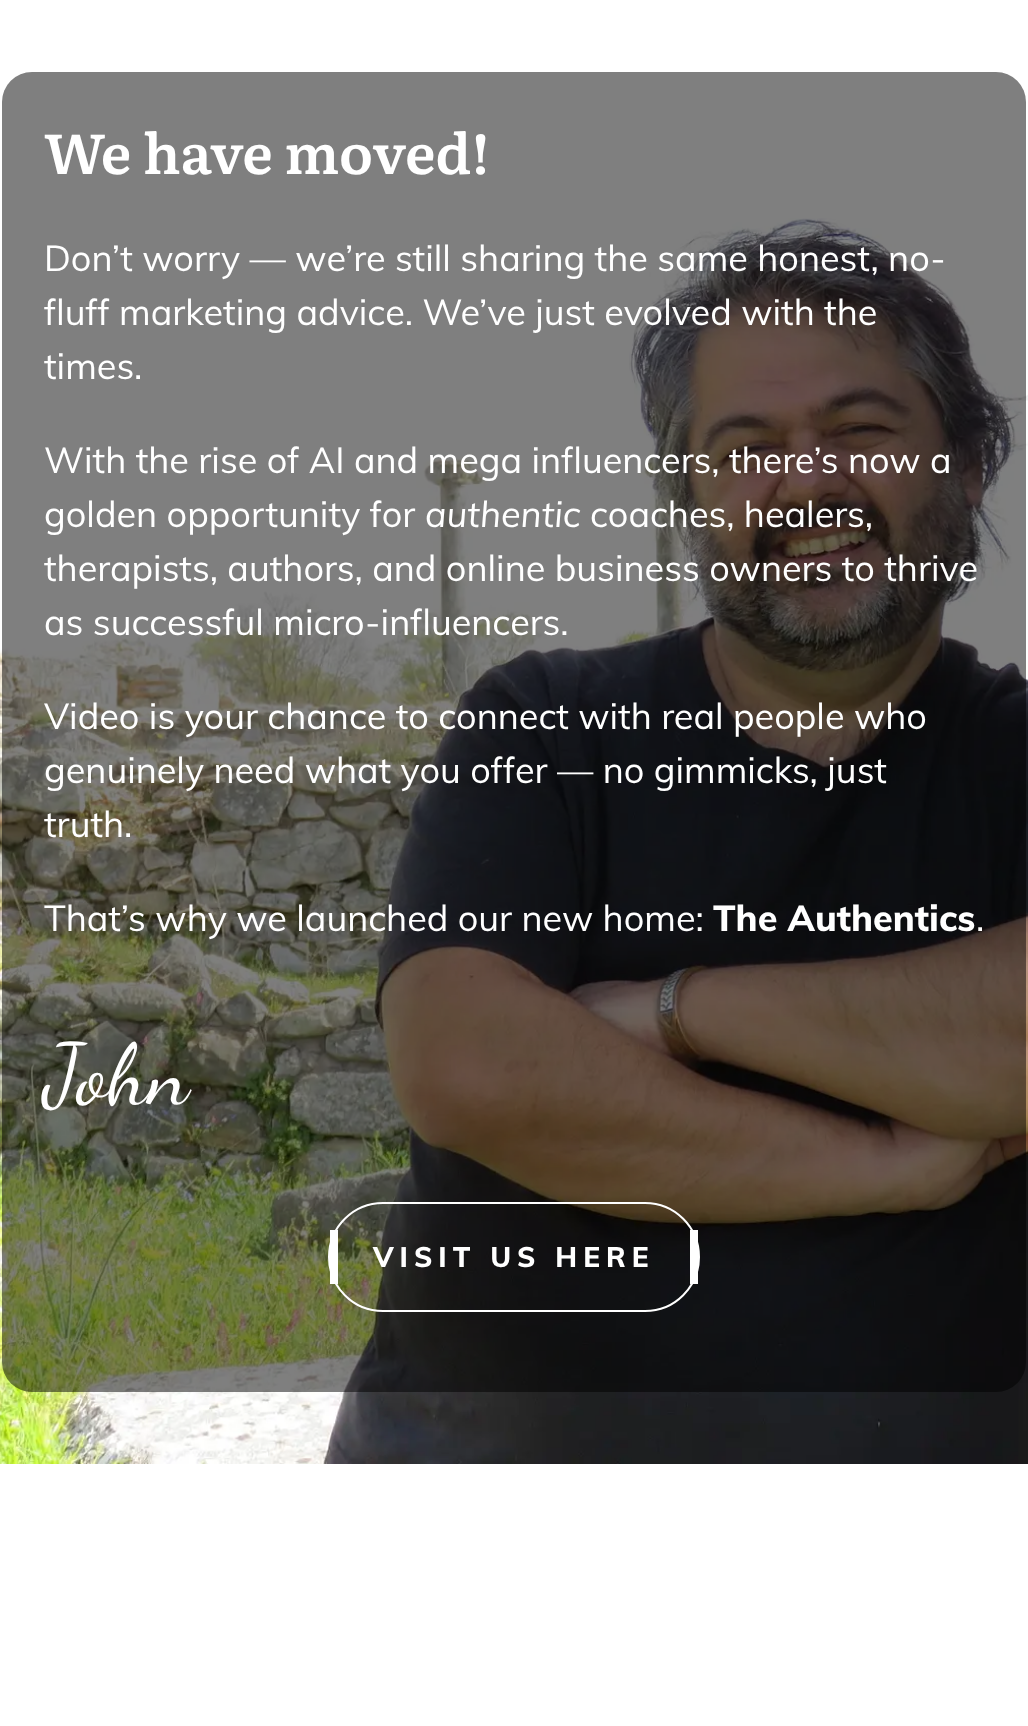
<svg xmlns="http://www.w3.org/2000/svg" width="1028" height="1726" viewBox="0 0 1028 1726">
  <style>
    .t1 { font: 600 56px Literata; fill: #fff; }
    .t2 { font: 36px Muli; fill: #fff; }
    .t3 { font: italic 36px Muli; fill: #fff; }
    .t4 { font: 800 36px Muli; fill: #fff; }
    .t5 { font: 86px Dancing Script; fill: #fff; }
    .t6 { font: 800 28px Muli; letter-spacing: 6px; fill: #fff; }
  </style>
  <rect width="100%" height="100%" fill="#fff"/>
  <image x="0" y="218" width="1028" height="1246" href="images/1.png"/>
  <rect x="2" y="72" width="1024" height="1320" rx="30" fill="#00000080"/>
  <text x="44" y="174" class="t1">We have moved!</text>
  <text x="44" y="271" class="t2">Don’t worry — we’re still sharing the same honest, no-</text>
  <text x="44" y="325" class="t2">fluff marketing advice. We’ve just evolved with the</text>
  <text x="44" y="379" class="t2">times.</text>
  <text x="44" y="473" class="t2">With the rise of AI and mega influencers, there’s now a</text>
  <text x="44" y="527" class="t2">golden opportunity for</text>
  <text x="425" y="527" class="t3">authentic</text>
  <text x="590" y="527" class="t2">coaches, healers,</text>
  <text x="44" y="581" class="t2">therapists, authors, and online business owners to thrive</text>
  <text x="44" y="635" class="t2">as successful micro-influencers.</text>
  <text x="44" y="729" class="t2">Video is your chance to connect with real people who</text>
  <text x="44" y="783" class="t2">genuinely need what you offer — no gimmicks, just</text>
  <text x="44" y="837" class="t2">truth.</text>
  <text x="44" y="931" class="t2">That’s why we launched our new home:</text>
  <text x="713" y="931" class="t4">The Authentics</text>
  <text x="976" y="931" class="t2">.</text>
  <text x="44" y="1103" class="t5">John</text>
  <rect x="329" y="1203" width="370" height="108" rx="54" fill="none" stroke="#fff" stroke-width="2"/>
  <rect x="690" y="1230" width="8" height="54" fill="#fff"/>
  <rect x="330" y="1230" width="8" height="54" fill="#fff"/>
  <text x="373" y="1267" class="t6">VISIT US HERE</text>
</svg>
